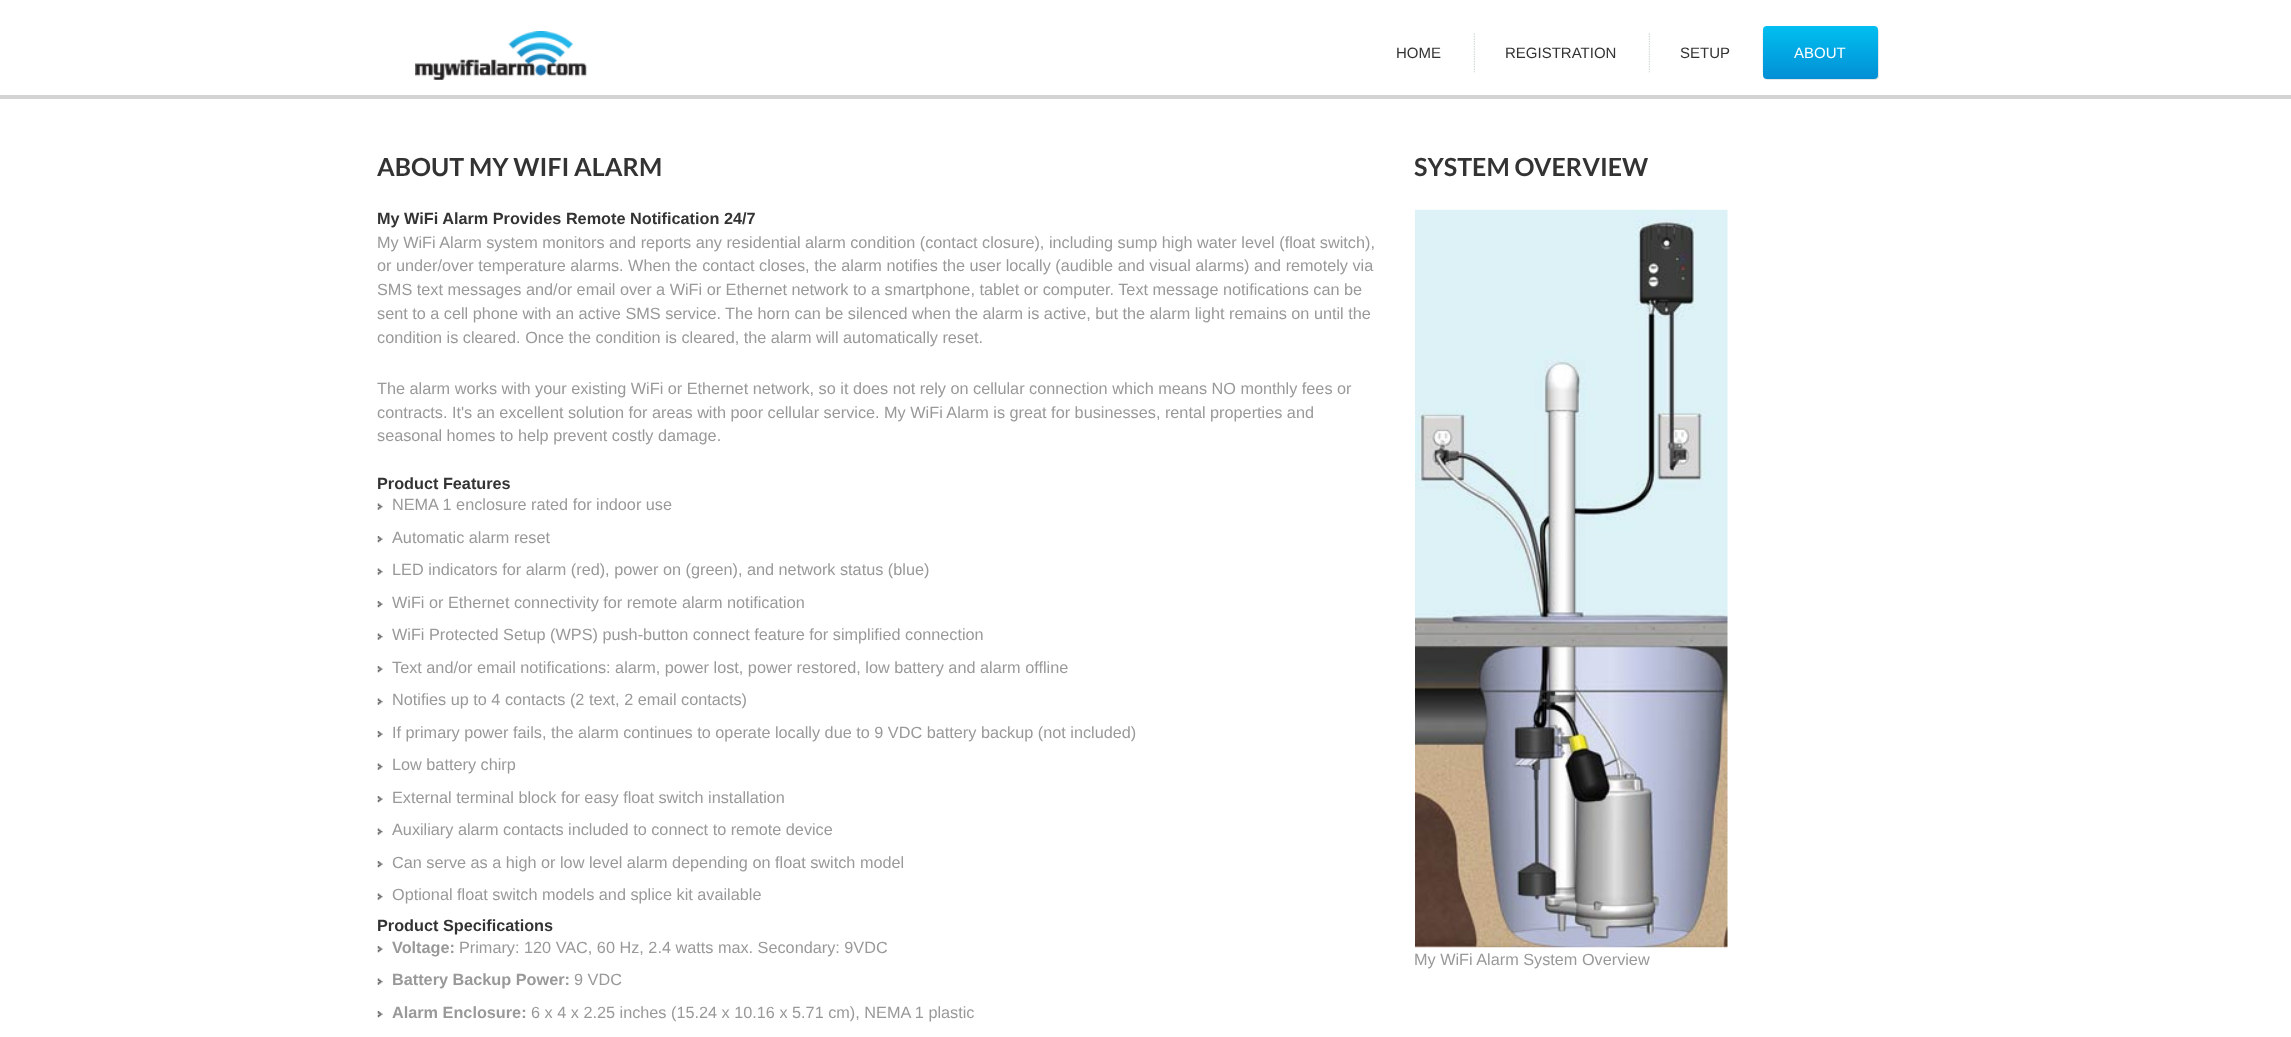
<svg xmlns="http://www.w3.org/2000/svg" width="2291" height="1037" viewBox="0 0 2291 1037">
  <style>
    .t1 { font: 15px Liberation Sans; fill: #333; }
    .t2 { font: 15px Liberation Sans; fill: #fff; }
    .t3 { font: bold 25px Lato; fill: #333; }
    .t4 { font: 16.25px Liberation Sans; fill: #999; }
    .t5 { font: bold 16.25px Liberation Sans; fill: #333; }
    .t6 { font: bold 16.25px Liberation Sans; fill: #999; }
  </style>
  <defs>
    <linearGradient id="g1" gradientUnits="userSpaceOnUse" x1="1820" y1="26" x2="1820" y2="79"><stop offset="0" stop-color="#00bff0"/><stop offset="1" stop-color="#038fd5"/></linearGradient>
  </defs>
  <rect width="100%" height="100%" fill="#fff"/>
  <rect x="0" y="95" width="2291" height="4" fill="#d3d3d3"/>
  <image x="415" y="31" width="172" height="49" href="images/1.png"/>
  <text x="1396" y="58" class="t1">HOME</text>
  <image x="1473" y="33" width="2" height="40" href="images/2.png"/>
  <text x="1505" y="58" class="t1">REGISTRATION</text>
  <image x="1648" y="33" width="2" height="40" href="images/2.png"/>
  <text x="1680" y="58" class="t1">SETUP</text>
  <image x="1762" y="33" width="1" height="40" href="images/3.png"/>
  <rect x="1764" y="28" width="115" height="52" rx="4" fill="#0000001a" filter="blur(0.5px)"/>
  <rect x="1763" y="26" width="115" height="53" rx="4" fill="url(#g1)"/>
  <text x="1794" y="58" class="t2">ABOUT</text>
  <text x="377" y="176" class="t3">ABOUT MY WIFI ALARM</text>
  <text x="1414" y="176" class="t3">SYSTEM OVERVIEW</text>
  <image x="1415" y="209" width="313" height="739" href="images/4.png"/>
  <text x="1414" y="965" class="t4">My WiFi Alarm System Overview</text>
  <text x="377" y="224" class="t5">My WiFi Alarm Provides Remote Notification 24/7</text>
  <text x="377" y="248" class="t4">My WiFi Alarm system monitors and reports any residential alarm condition (contact closure), including sump high water level (float switch),</text>
  <text x="377" y="271" class="t4">or under/over temperature alarms. When the contact closes, the alarm notifies the user locally (audible and visual alarms) and remotely via</text>
  <text x="377" y="295" class="t4">SMS text messages and/or email over a WiFi or Ethernet network to a smartphone, tablet or computer. Text message notifications can be</text>
  <text x="377" y="319" class="t4">sent to a cell phone with an active SMS service.</text>
  <text x="725" y="319" class="t4">The horn can be silenced when the alarm is active, but the alarm light remains on until the</text>
  <text x="377" y="343" class="t4">condition is cleared. Once the condition is cleared, the alarm will automatically reset.</text>
  <text x="377" y="394" class="t4">The alarm works with your existing WiFi or Ethernet network, so it does not rely on cellular connection which means NO monthly fees or</text>
  <text x="377" y="418" class="t4">contracts. It's an excellent solution for areas with poor cellular service. My WiFi Alarm is great for businesses, rental properties and</text>
  <text x="377" y="441" class="t4">seasonal homes to help prevent costly damage.</text>
  <text x="377" y="489" class="t5">Product Features</text>
  <image x="377" y="503" width="6" height="7" href="images/5.png"/>
  <text x="392" y="510" class="t4">NEMA 1 enclosure rated for indoor use</text>
  <image x="377" y="536" width="6" height="7" href="images/6.png"/>
  <text x="392" y="543" class="t4">Automatic alarm reset</text>
  <image x="377" y="568" width="6" height="7" href="images/5.png"/>
  <text x="392" y="575" class="t4">LED indicators for alarm (red), power on (green), and network status (blue)</text>
  <image x="377" y="601" width="6" height="7" href="images/6.png"/>
  <text x="392" y="608" class="t4">WiFi or Ethernet connectivity for remote alarm notification</text>
  <image x="377" y="633" width="6" height="7" href="images/5.png"/>
  <text x="392" y="640" class="t4">WiFi Protected Setup (WPS) push-button connect feature for simplified connection</text>
  <image x="377" y="666" width="6" height="7" href="images/6.png"/>
  <text x="392" y="673" class="t4">Text and/or email notifications: alarm, power lost, power restored, low battery and alarm offline</text>
  <image x="377" y="698" width="6" height="7" href="images/5.png"/>
  <text x="392" y="705" class="t4">Notifies up to 4 contacts (2 text, 2 email contacts)</text>
  <image x="377" y="731" width="6" height="7" href="images/6.png"/>
  <text x="392" y="738" class="t4">If primary power fails, the alarm continues to operate locally due to 9 VDC battery backup (not included)</text>
  <image x="377" y="763" width="6" height="7" href="images/7.png"/>
  <text x="392" y="770" class="t4">Low battery chirp</text>
  <image x="377" y="796" width="6" height="7" href="images/6.png"/>
  <text x="392" y="803" class="t4">External terminal block for easy float switch installation</text>
  <image x="377" y="828" width="6" height="7" href="images/5.png"/>
  <text x="392" y="835" class="t4">Auxiliary alarm contacts included to connect to remote device</text>
  <image x="377" y="861" width="6" height="7" href="images/6.png"/>
  <text x="392" y="868" class="t4">Can serve as a high or low level alarm depending on float switch model</text>
  <image x="377" y="893" width="6" height="7" href="images/5.png"/>
  <text x="392" y="900" class="t4">Optional float switch models and splice kit available</text>
  <text x="377" y="931" class="t5">Product Specifications</text>
  <image x="377" y="946" width="6" height="7" href="images/6.png"/>
  <text x="392" y="953" class="t6">Voltage:</text>
  <text x="459" y="953" class="t4">Primary: 120 VAC, 60 Hz, 2.4 watts max. Secondary: 9VDC</text>
  <image x="377" y="978" width="6" height="7" href="images/5.png"/>
  <text x="392" y="985" class="t6">Battery Backup Power:</text>
  <text x="574" y="985" class="t4">9 VDC</text>
  <image x="377" y="1011" width="6" height="7" href="images/8.png"/>
  <text x="392" y="1018" class="t6">Alarm Enclosure:</text>
  <text x="531" y="1018" class="t4">6 x 4 x 2.25 inches (15.24 x 10.16 x 5.71 cm), NEMA 1 plastic</text>
</svg>
